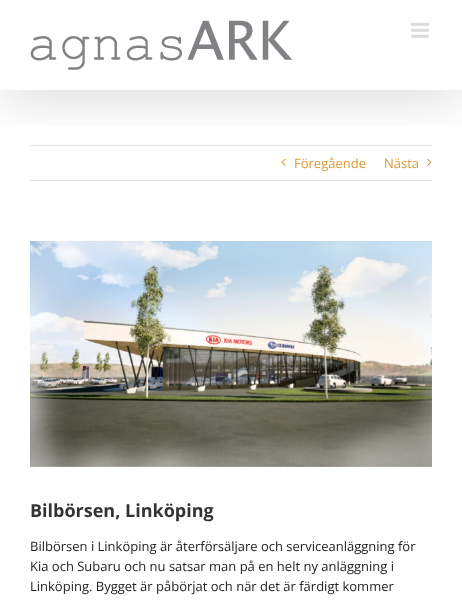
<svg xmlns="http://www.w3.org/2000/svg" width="462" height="600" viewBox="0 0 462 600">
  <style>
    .t1 { font: 13px Open Sans; fill: #d93; }
    .t2 { font: bold 18px Open Sans; fill: #333; }
    .t3 { font: 13px Open Sans; fill: #232323; }
  </style>
  <defs>
    <clipPath id="clip1"><rect x="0" y="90" width="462" height="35"/></clipPath>
  </defs>
  <rect width="100%" height="100%" fill="#fff"/>
  <rect x="30" y="145" width="402" height="1" fill="#e0dede"/>
  <image x="281" y="158" width="5" height="8" href="images/3.png"/>
  <image x="427" y="158" width="5" height="8" href="images/4.png"/>
  <g clip-path="url(#clip1)">
    <rect x="2" y="12" width="458" height="86" fill="#00000024" filter="blur(25px)"/>
  </g>
  <image x="30" y="20" width="262" height="50" href="images/1.png"/>
  <image x="411" y="22" width="18" height="16" href="images/2.png"/>
  <rect x="30" y="180" width="402" height="1" fill="#e0dede"/>
  <text x="294" y="168" class="t1">Föregående</text>
  <text x="384" y="168" class="t1">Nästa</text>
  <image x="30" y="241" width="402" height="226" href="images/5.png"/>
  <text x="30" y="517" class="t2">Bilbörsen, Linköping</text>
  <text x="30" y="551" class="t3">Bilbörsen i Linköping är återförsäljare och serviceanläggning för</text>
  <text x="30" y="571" class="t3">Kia och Subaru och nu satsar man på en helt ny anläggning i</text>
  <text x="30" y="591" class="t3">Linköping. Bygget är påbörjat och när det är färdigt kommer</text>
</svg>
